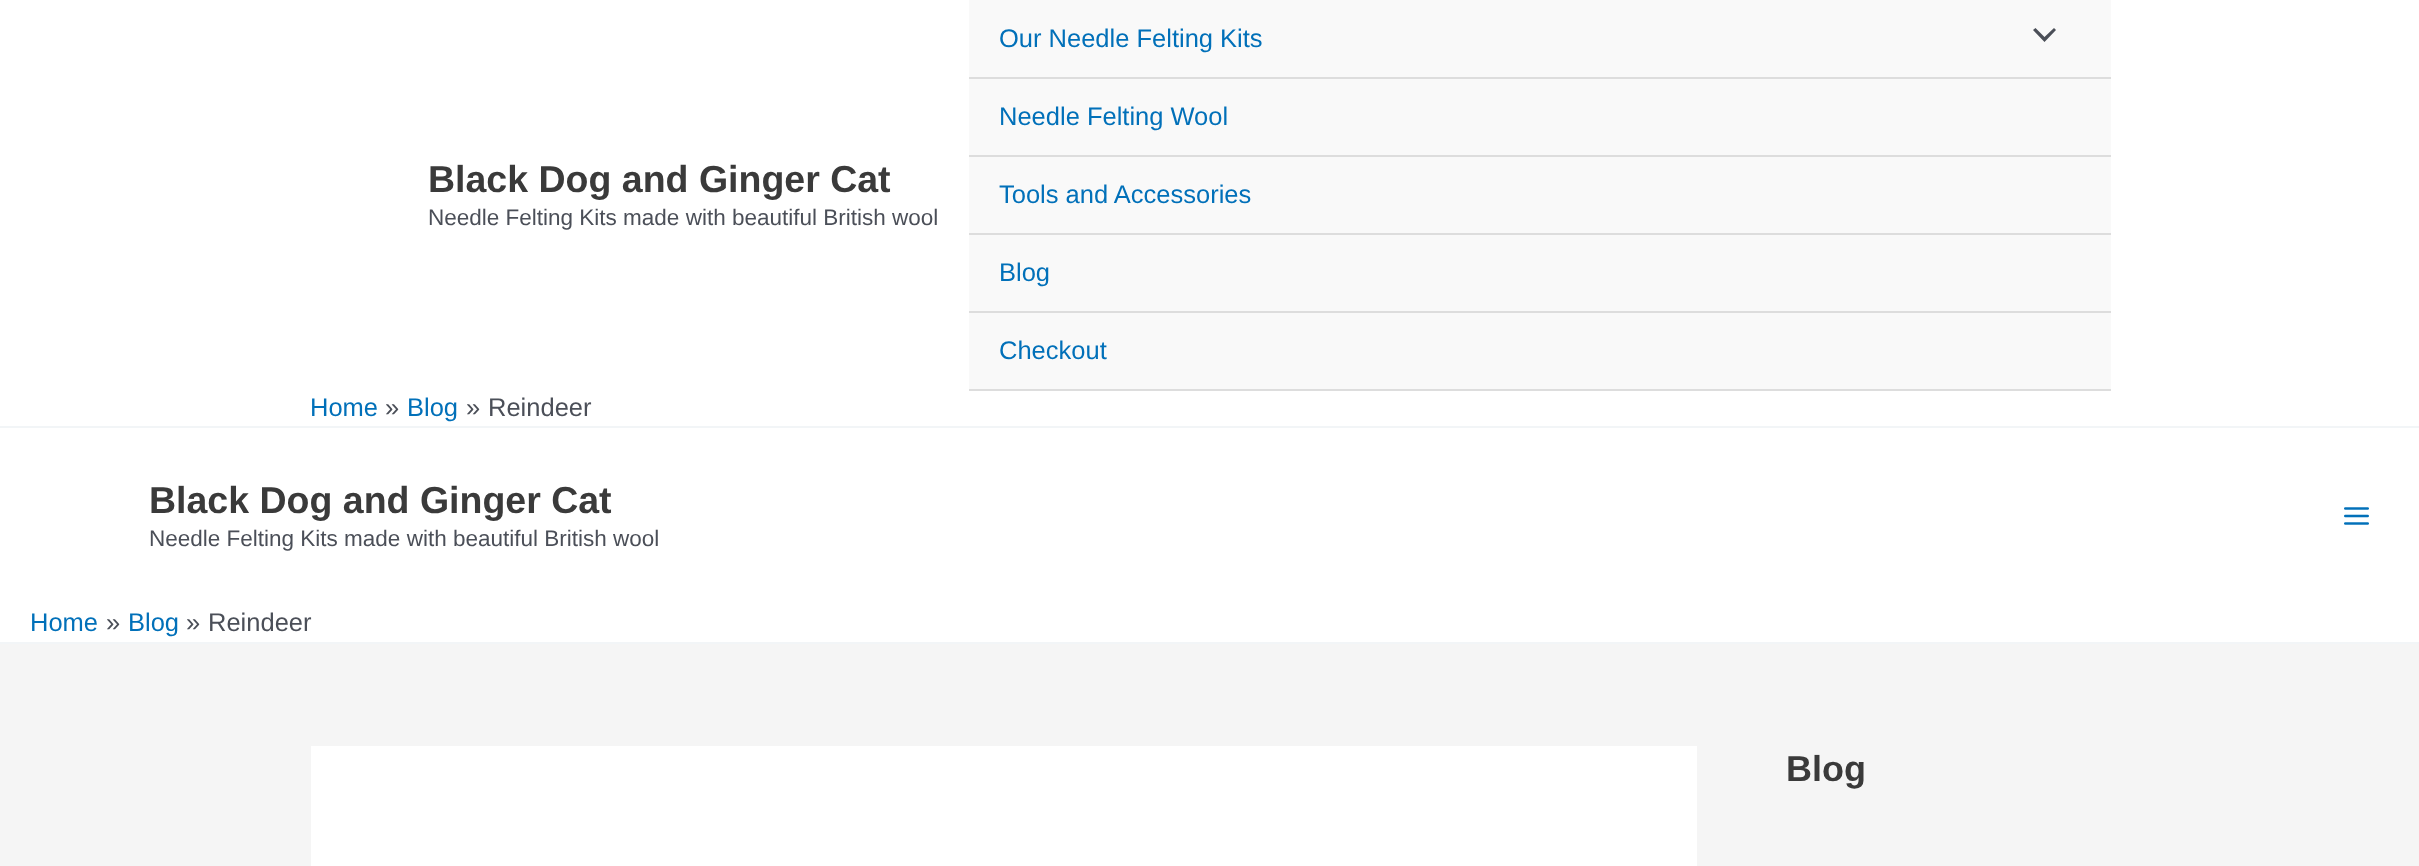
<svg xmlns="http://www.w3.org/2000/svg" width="2419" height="866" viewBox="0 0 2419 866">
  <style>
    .t1 { font: bold 37.5px Liberation Sans; fill: #3a3a3a; }
    .t2 { font: 22.5px Liberation Sans; fill: #4b4f58; }
    .t3 { font: 25.5px Liberation Sans; fill: #0170b9; }
    .t4 { font: 25.5px Liberation Sans; fill: #4b4f58; }
    .t5 { font: bold 36px Liberation Sans; fill: #3a3a3a; }
  </style>
  <rect width="100%" height="100%" fill="#f5f5f5"/>
  <rect x="0" y="0" width="2419" height="426" fill="#fff"/>
  <rect x="0" y="426" width="2419" height="2" fill="#f2f5f7"/>
  <text x="428" y="192" class="t1">Black Dog and Ginger Cat</text>
  <text x="428" y="225" class="t2">Needle Felting Kits made with beautiful British wool</text>
  <rect x="969" y="0" width="1142" height="389" fill="#f9f9f9"/>
  <rect x="969" y="77" width="1142" height="2" fill="#ddd"/>
  <text x="999" y="47" class="t3">Our Needle Felting Kits</text>
  <path d="M2033 30L2044.5 42L2056 30L2054 28L2044.5 37L2035.5 28Z" fill="#4b4f58"/>
  <rect x="969" y="155" width="1142" height="2" fill="#ddd"/>
  <text x="999" y="125" class="t3">Needle Felting Wool</text>
  <rect x="969" y="233" width="1142" height="2" fill="#ddd"/>
  <text x="999" y="203" class="t3">Tools and Accessories</text>
  <rect x="969" y="311" width="1142" height="2" fill="#ddd"/>
  <text x="999" y="281" class="t3">Blog</text>
  <rect x="969" y="389" width="1142" height="2" fill="#ddd"/>
  <text x="999" y="359" class="t3">Checkout</text>
  <text x="310" y="416" class="t3">Home</text>
  <text x="385" y="416" class="t4">»</text>
  <text x="407" y="416" class="t3">Blog</text>
  <text x="466" y="416" class="t4">»</text>
  <text x="488" y="416" class="t4">Reindeer</text>
  <rect x="0" y="428" width="2419" height="214" fill="#fff"/>
  <rect x="0" y="642" width="2419" height="2" fill="#f2f5f7"/>
  <text x="149" y="513" class="t1">Black Dog and Ginger Cat</text>
  <text x="149" y="546" class="t2">Needle Felting Kits made with beautiful British wool</text>
  <image x="2344" y="507" width="25" height="18" href="images/1.png"/>
  <text x="30" y="631" class="t3">Home</text>
  <text x="106" y="631" class="t4">»</text>
  <text x="128" y="631" class="t3">Blog</text>
  <text x="186" y="631" class="t4">»</text>
  <text x="208" y="631" class="t4">Reindeer</text>
  <rect x="311" y="746" width="1386" height="120" fill="#fff"/>
  <text x="1786" y="781" class="t5">Blog</text>
</svg>
